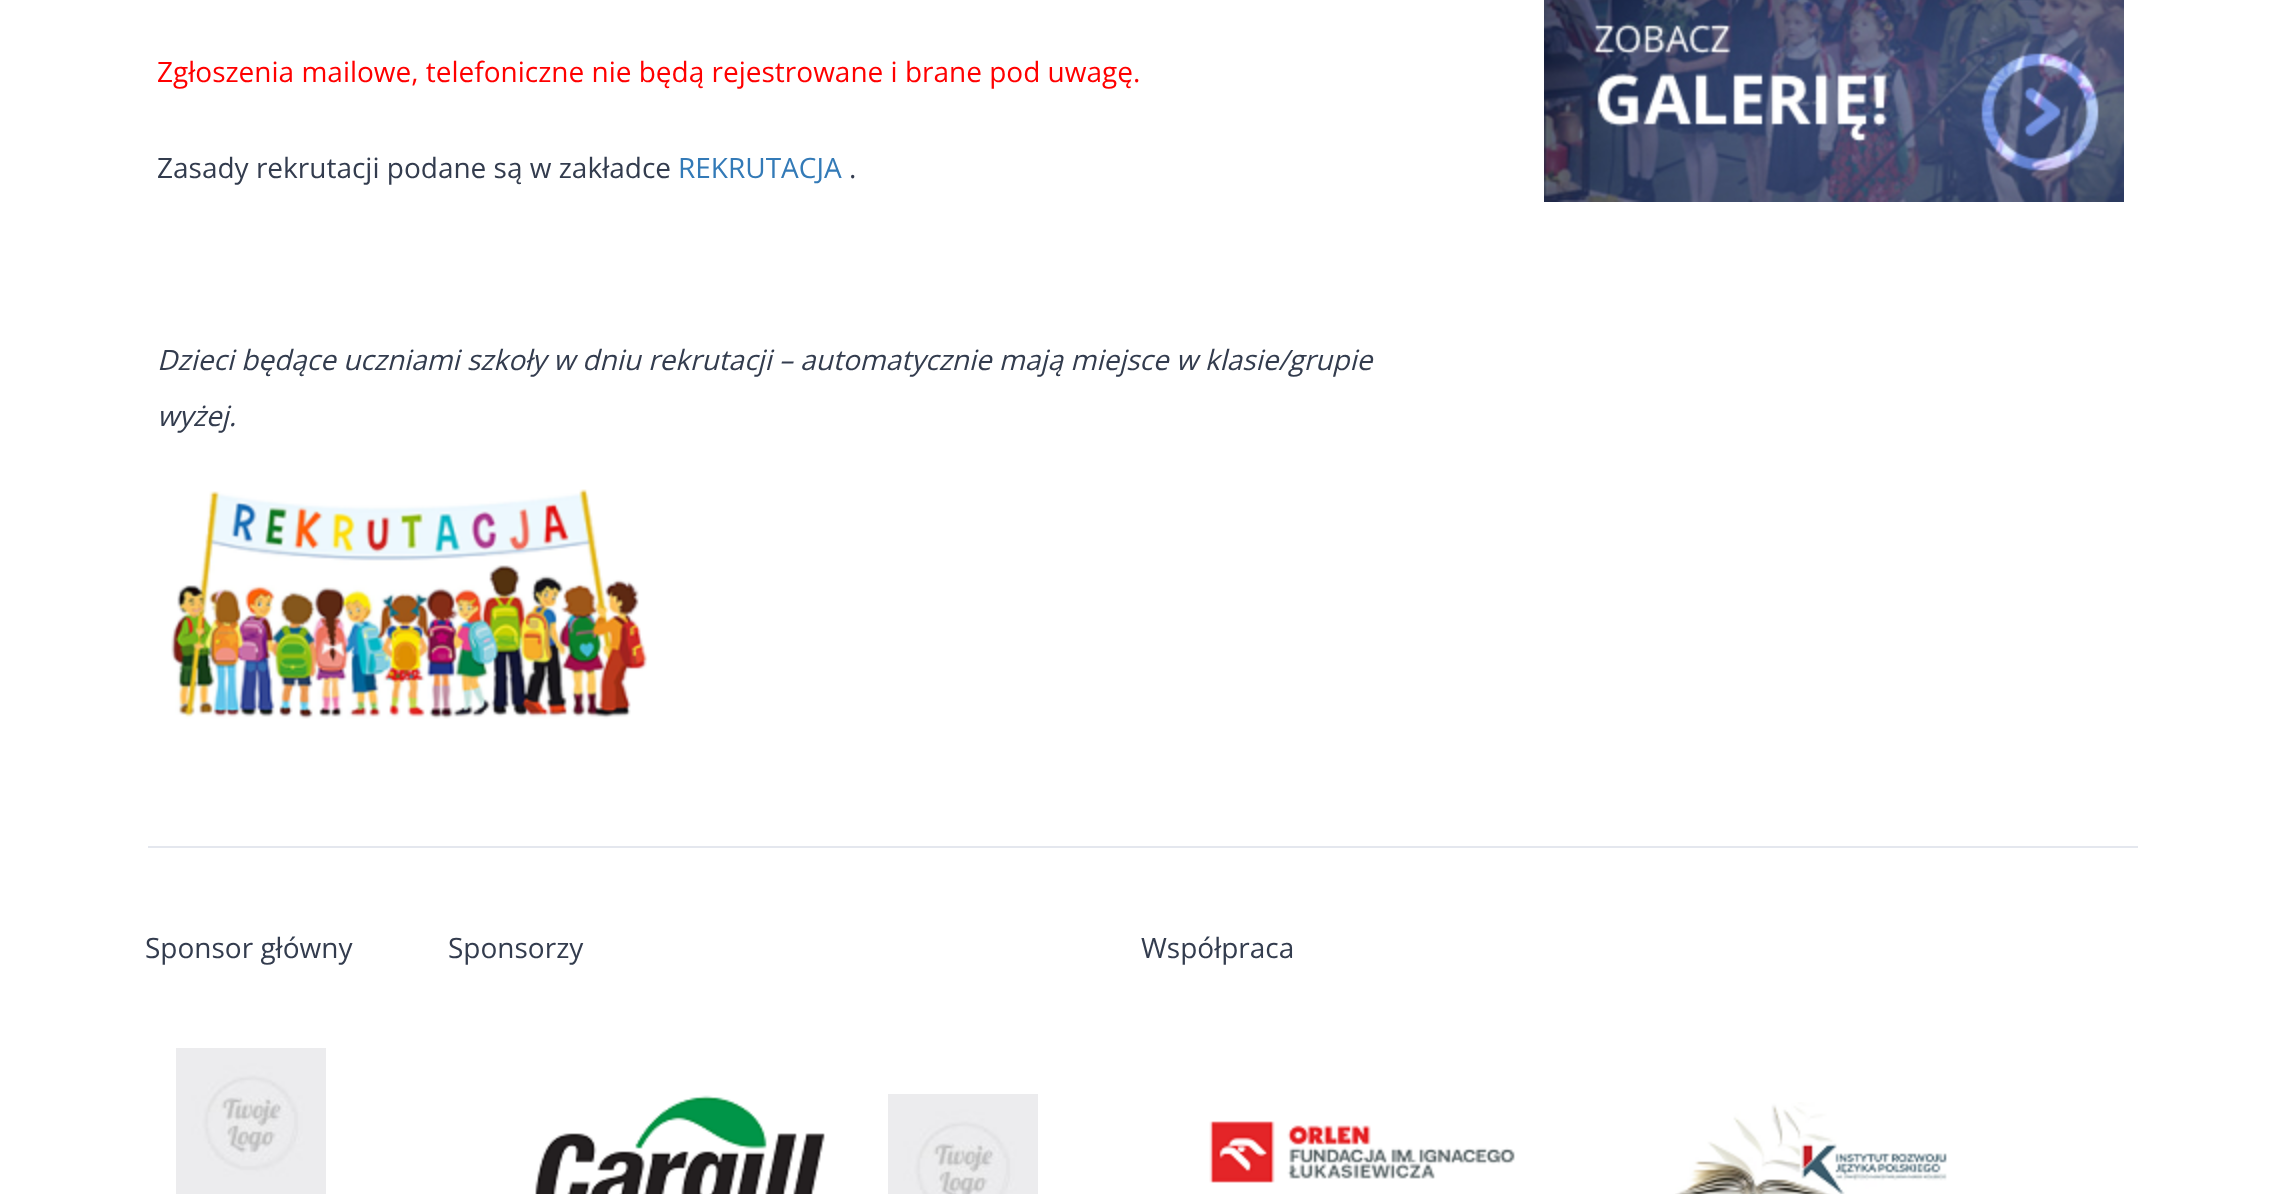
<svg xmlns="http://www.w3.org/2000/svg" width="2283" height="1194" viewBox="0 0 2283 1194">
  <style>
    .t1 { font: 28px Open Sans; fill: #f00; }
    .t2 { font: 28px Open Sans; fill: #333c4e; }
    .t3 { font: 28px Open Sans; fill: #337ab7; }
    .t4 { font: italic 28px Open Sans; fill: #333c4e; }
  </style>
  <rect width="100%" height="100%" fill="#fff"/>
  <text x="157" y="82" class="t1">Zgłoszenia mailowe, telefoniczne nie będą rejestrowane i brane pod uwagę.</text>
  <text x="157" y="178" class="t2">Zasady rekrutacji podane są w zakładce</text>
  <text x="678" y="178" class="t3">REKRUTACJA</text>
  <text x="849" y="178" class="t2">.</text>
  <text x="157" y="370" class="t4">Dzieci będące uczniami szkoły w dniu rekrutacji – automatycznie mają miejsce w klasie/grupie</text>
  <text x="157" y="426" class="t4">wyżej.</text>
  <image x="171" y="489" width="477" height="230" href="images/1.png"/>
  <image x="1544" y="0" width="580" height="202" href="images/2.png"/>
  <rect x="148" y="846" width="1990" height="2" fill="#e4e7ee"/>
  <text x="145" y="958" class="t2">Sponsor główny</text>
  <image x="176" y="1048" width="150" height="146" href="images/3.png"/>
  <text x="448" y="958" class="t2">Sponsorzy</text>
  <image x="535" y="1095" width="290" height="99" href="images/4.png"/>
  <image x="888" y="1094" width="150" height="100" href="images/5.png"/>
  <text x="1141" y="958" class="t2">Współpraca</text>
  <image x="1209" y="1121" width="306" height="62" href="images/6.png"/>
  <image x="1675" y="1102" width="272" height="92" href="images/7.png"/>
</svg>
